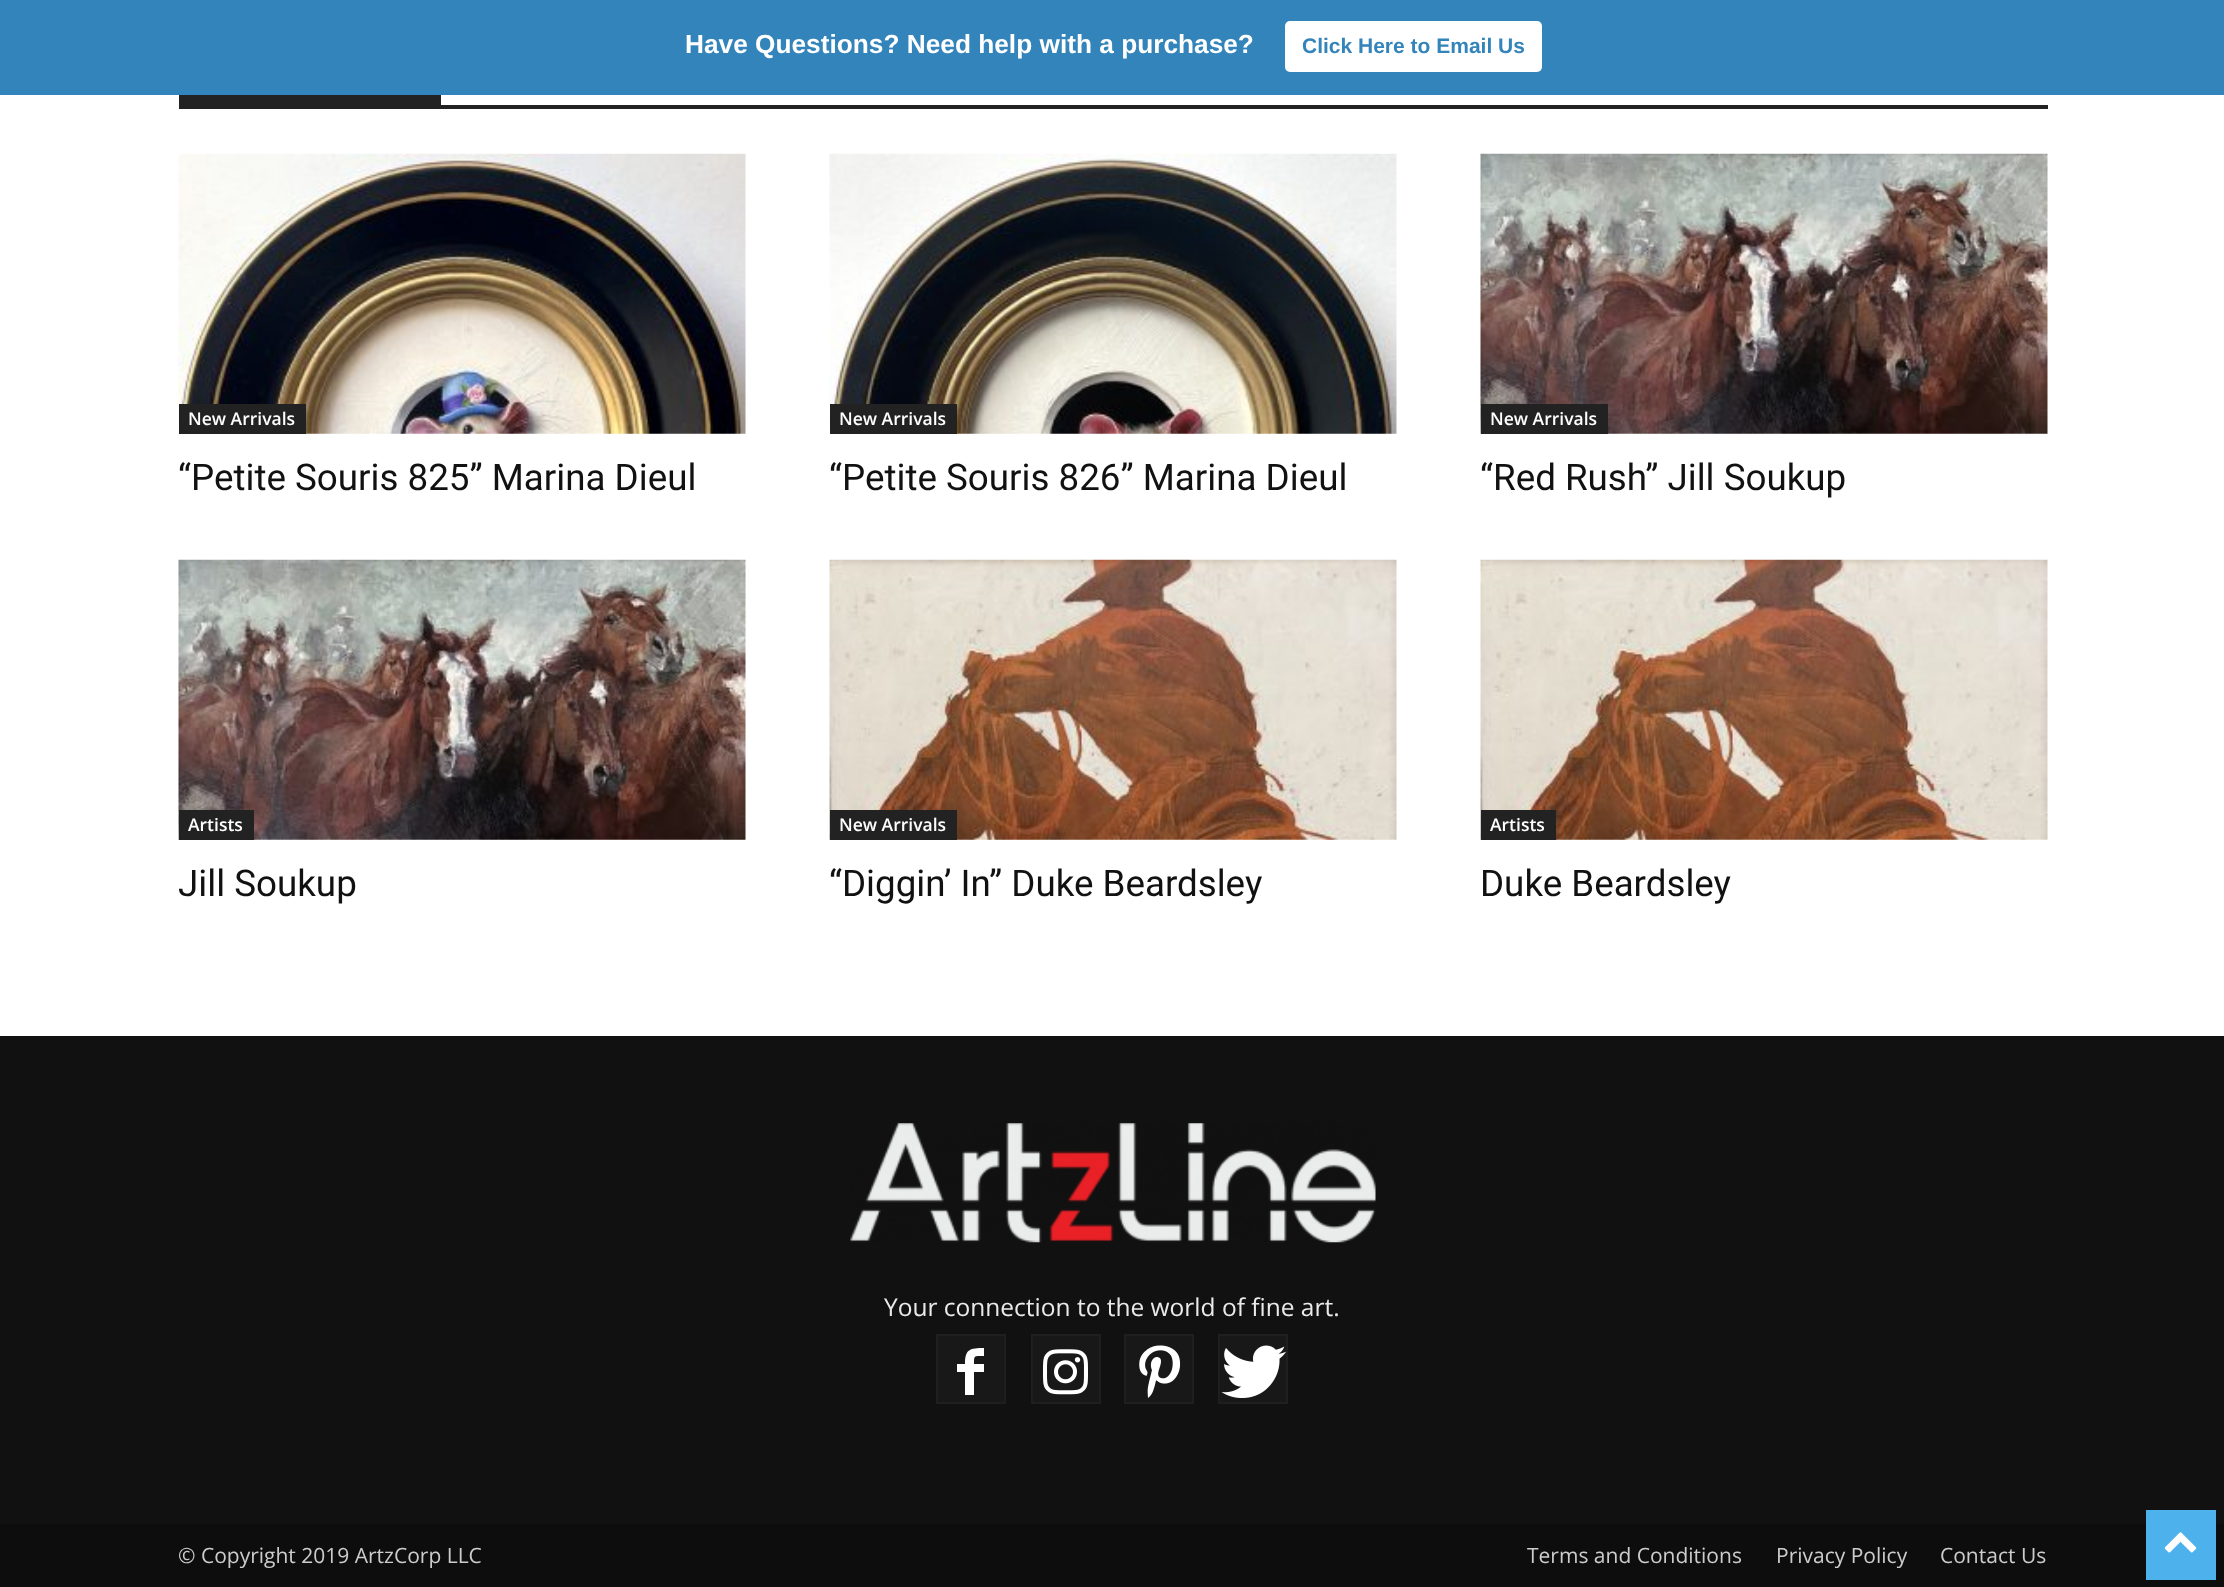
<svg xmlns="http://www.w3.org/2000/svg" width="2224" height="1587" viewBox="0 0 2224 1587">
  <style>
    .t1 { font: bold 26.25px Liberation Sans; fill: #fff; }
    .t2 { font: bold 21px Liberation Sans; fill: #3384ba; }
    .t3 { font: 600 17.5px Open Sans; fill: #fff; }
    .t4 { font: 36.75px Roboto; fill: #111; }
    .t5 { font: 24.5px Open Sans; fill: #eaeaea; }
    .t6 { font: 21px Open Sans; fill: #ccc; }
  </style>
  <rect width="100%" height="100%" fill="#fff"/>
  <rect x="0" y="0" width="2224" height="95" fill="#3384ba"/>
  <text x="685" y="53" class="t1">Have Questions? Need help with a purchase?</text>
  <rect x="1285" y="21" width="257" height="51" rx="5" fill="#fff"/>
  <text x="1302" y="53" class="t2">Click Here to Email Us</text>
  <rect x="179" y="105" width="1869" height="4" fill="#222"/>
  <rect x="179" y="95" width="262" height="10" fill="#222"/>
  <image x="178" y="153" width="568" height="281" href="images/1.png"/>
  <rect x="179" y="404" width="127" height="30" fill="#222"/>
  <text x="188" y="425" class="t3">New Arrivals</text>
  <text x="178" y="490" class="t4">“Petite Souris 825” Marina Dieul</text>
  <image x="829" y="153" width="568" height="281" href="images/2.png"/>
  <rect x="830" y="404" width="127" height="30" fill="#222"/>
  <text x="839" y="425" class="t3">New Arrivals</text>
  <text x="829" y="490" class="t4">“Petite Souris 826” Marina Dieul</text>
  <image x="1480" y="153" width="568" height="281" href="images/3.png"/>
  <rect x="1481" y="404" width="127" height="30" fill="#222"/>
  <text x="1490" y="425" class="t3">New Arrivals</text>
  <text x="1480" y="490" class="t4">“Red Rush” Jill Soukup</text>
  <image x="178" y="559" width="568" height="281" href="images/4.png"/>
  <rect x="179" y="810" width="75" height="30" fill="#222"/>
  <text x="188" y="831" class="t3">Artists</text>
  <text x="178" y="896" class="t4">Jill Soukup</text>
  <image x="829" y="559" width="568" height="281" href="images/5.png"/>
  <rect x="830" y="810" width="127" height="30" fill="#222"/>
  <text x="839" y="831" class="t3">New Arrivals</text>
  <text x="829" y="896" class="t4">“Diggin’ In” Duke Beardsley</text>
  <image x="1480" y="559" width="568" height="281" href="images/6.png"/>
  <rect x="1481" y="810" width="75" height="30" fill="#222"/>
  <text x="1490" y="831" class="t3">Artists</text>
  <text x="1480" y="896" class="t4">Duke Beardsley</text>
  <rect x="0" y="1036" width="2224" height="488" fill="#111"/>
  <image x="850" y="1123" width="526" height="120" href="images/7.png"/>
  <text x="884" y="1316" class="t5">Your connection to the world of fine art.</text>
  <rect x="938" y="1336" width="66" height="66" fill="#181818"/>
  <path d="M984 1356C974 1356 974 1355 974 1364H984V1372H974V1395H965V1372H957V1364H965C965 1349 970 1348 984 1348Z" fill="#fff"/>
  <rect x="937" y="1335" width="68" height="68" fill="none" stroke="#1f1f1f" stroke-width="2"/>
  <rect x="1033" y="1336" width="66" height="66" fill="#181818"/>
  <image x="1043" y="1349" width="45" height="46" href="images/8.png"/>
  <rect x="1032" y="1335" width="68" height="68" fill="none" stroke="#1f1f1f" stroke-width="2"/>
  <rect x="1126" y="1336" width="66" height="66" fill="#181818"/>
  <image x="1139" y="1345" width="42" height="53" href="images/9.png"/>
  <rect x="1125" y="1335" width="68" height="68" fill="none" stroke="#1f1f1f" stroke-width="2"/>
  <rect x="1220" y="1336" width="66" height="66" fill="#181818"/>
  <image x="1221" y="1345" width="65" height="53" href="images/10.png"/>
  <rect x="1219" y="1335" width="68" height="68" fill="none" stroke="#1f1f1f" stroke-width="2"/>
  <rect x="0" y="1524" width="2224" height="63" fill="#0d0d0d"/>
  <text x="178" y="1563" class="t6">© Copyright 2019 ArtzCorp LLC</text>
  <text x="1527" y="1563" class="t6">Terms and Conditions</text>
  <text x="1776" y="1563" class="t6">Privacy Policy</text>
  <text x="1940" y="1563" class="t6">Contact Us</text>
  <rect x="2146" y="1510" width="70" height="70" fill="#4db2ec"/>
  <image x="2164" y="1532" width="33" height="21" href="images/11.png"/>
</svg>
